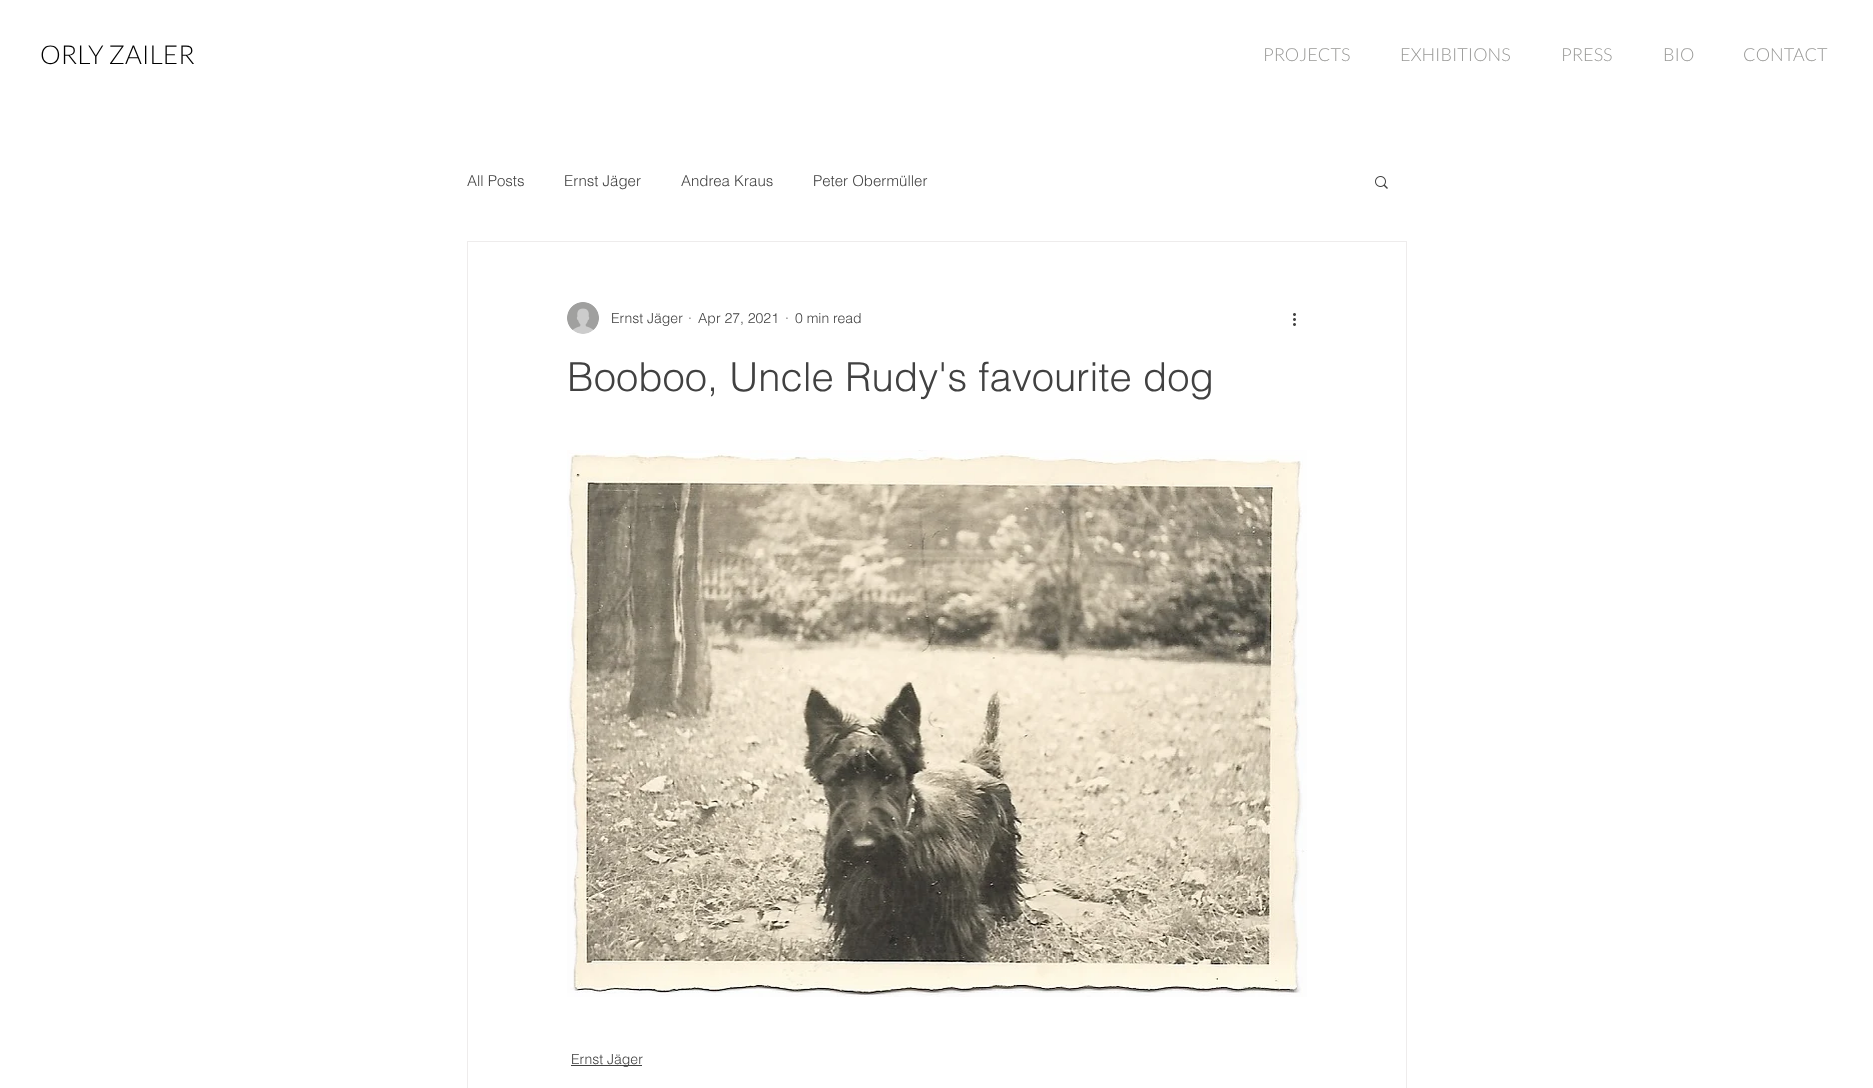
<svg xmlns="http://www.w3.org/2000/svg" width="1873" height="1088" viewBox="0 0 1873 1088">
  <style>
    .t1 { font: 300 26px Lato; fill: #000; }
    .t2 { font: 300 18px Lato; fill: #999997; }
    .t3 { font: 300 15px helvetica; fill: #414141; }
    .t4 { font: 300 14px helvetica; fill: #414141; }
    .t5 { font: 300 40px helvetica; fill: #414141; }
  </style>
  <rect width="100%" height="100%" fill="#fff"/>
  <text x="40" y="64" class="t1">ORLY ZAILER</text>
  <text x="1263" y="61" class="t2">PROJECTS</text>
  <text x="1400" y="61" class="t2">EXHIBITIONS</text>
  <text x="1561" y="61" class="t2">PRESS</text>
  <text x="1663" y="61" class="t2">BIO</text>
  <text x="1743" y="61" class="t2">CONTACT</text>
  <text x="467" y="186" class="t3">All Posts</text>
  <text x="564" y="186" class="t3">Ernst Jäger</text>
  <text x="681" y="186" class="t3">Andrea Kraus</text>
  <text x="813" y="186" class="t3">Peter Obermüller</text>
  <image x="1375" y="176" width="13" height="13" href="images/1.png"/>
  <rect x="467.5" y="241.5" width="939" height="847" fill="none" stroke="#eeecec"/>
  <image x="567" y="302" width="32" height="32" href="images/2.png"/>
  <text x="611" y="323" class="t4">Ernst Jäger</text>
  <text x="688" y="323" class="t4">·</text>
  <text x="698" y="323" class="t4">Apr 27, 2021</text>
  <text x="785" y="323" class="t4">·</text>
  <text x="795" y="323" class="t4">0 min read</text>
  <image x="1293" y="313" width="3" height="13" href="images/3.png"/>
  <text x="567" y="391" class="t5">Booboo, Uncle Rudy's favourite dog</text>
  <image x="567" y="450" width="740" height="547" href="images/4.png"/>
  <rect x="571" y="1065" width="71" height="1" fill="#414141"/>
  <text x="571" y="1064" class="t4">Ernst Jäger</text>
</svg>
